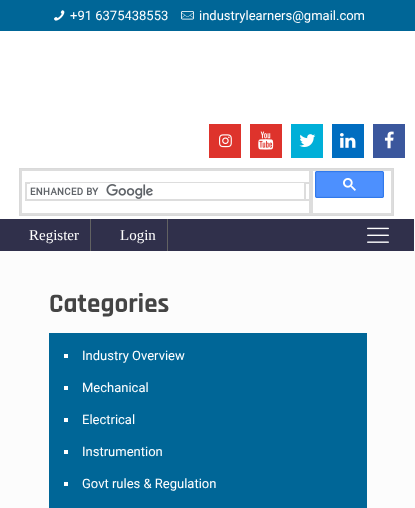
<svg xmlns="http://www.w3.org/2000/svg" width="415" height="508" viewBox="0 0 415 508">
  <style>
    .t1 { font: 13px Roboto; fill: #fff; }
    .t2 { font: 15px Liberation Serif; fill: #fff; }
    .t3 { font: bold 27px Rajdhani; fill: #444; }
  </style>
  <rect width="100%" height="100%" fill="#fcfcfc"/>
  <rect x="0" y="0" width="415" height="31" fill="#006697"/>
  <image x="54" y="10" width="11" height="11" href="images/1.png"/>
  <text x="70" y="20" class="t1">+91 6375438553</text>
  <image x="181" y="11" width="13" height="9" href="images/2.png"/>
  <text x="199" y="20" class="t1">industrylearners@gmail.com</text>
  <rect x="0" y="31" width="415" height="188" fill="#fff"/>
  <rect x="209" y="124" width="32" height="34" fill="#de332c"/>
  <image x="219" y="134" width="13" height="14" href="images/3.png"/>
  <rect x="250" y="124" width="32" height="34" fill="#de332c"/>
  <image x="258" y="131" width="16" height="19" href="images/4.png"/>
  <rect x="291" y="124" width="32" height="34" fill="#00afd8"/>
  <image x="299" y="134" width="17" height="13" href="images/5.png"/>
  <rect x="332" y="124" width="32" height="34" fill="#006dc0"/>
  <image x="340" y="133" width="16" height="15" href="images/6.png"/>
  <rect x="373" y="124" width="32" height="34" fill="#3b579d"/>
  <image x="384" y="131" width="10" height="18" href="images/7.png"/>
  <rect x="19.5" y="168.5" width="374" height="47" fill="none" stroke="#d9d9d9"/>
  <rect x="21" y="170" width="289" height="44" fill="none" stroke="#ddd" stroke-width="2"/>
  <rect x="26" y="183" width="277" height="17" fill="none" stroke="#ddd" stroke-width="2"/>
  <rect x="30" y="183" width="274" height="16" fill="#fff"/>
  <image x="30" y="184" width="123" height="15" href="images/8.png"/>
  <rect x="305" y="183" width="6" height="17" fill="none" stroke="#ddd" stroke-width="2"/>
  <rect x="312" y="170" width="80" height="44" fill="none" stroke="#ddd" stroke-width="2"/>
  <rect x="315" y="171" width="69" height="27" rx="2" fill="#4d90fe"/>
  <rect x="316.5" y="172.5" width="66" height="24" rx="0.5" fill="none" stroke="#4b8cf6"/>
  <rect x="315.5" y="171.5" width="68" height="26" rx="1.5" fill="none" stroke="#3079ed"/>
  <image x="343" y="178" width="13" height="13" href="images/9.png"/>
  <rect x="0" y="219" width="414" height="32" fill="#30304b"/>
  <rect x="90" y="219" width="1" height="32" fill="#626262"/>
  <text x="29" y="240" class="t2">Register</text>
  <rect x="167" y="219" width="1" height="32" fill="#626262"/>
  <text x="120" y="240" class="t2">Login</text>
  <image x="367" y="227" width="22" height="16" href="images/10.png"/>
  <text x="49" y="312" class="t3">Categories</text>
  <rect x="49" y="333" width="318" height="175" fill="#006697"/>
  <rect x="64" y="354" width="4" height="4" fill="#fff"/>
  <text x="82" y="360" class="t1">Industry Overview</text>
  <rect x="64" y="386" width="4" height="4" fill="#fff"/>
  <text x="82" y="392" class="t1">Mechanical</text>
  <rect x="64" y="418" width="4" height="4" fill="#fff"/>
  <text x="82" y="424" class="t1">Electrical</text>
  <rect x="64" y="450" width="4" height="4" fill="#fff"/>
  <text x="82" y="456" class="t1">Instrumention</text>
  <rect x="64" y="482" width="4" height="4" fill="#fff"/>
  <text x="82" y="488" class="t1">Govt rules &amp; Regulation</text>
</svg>
